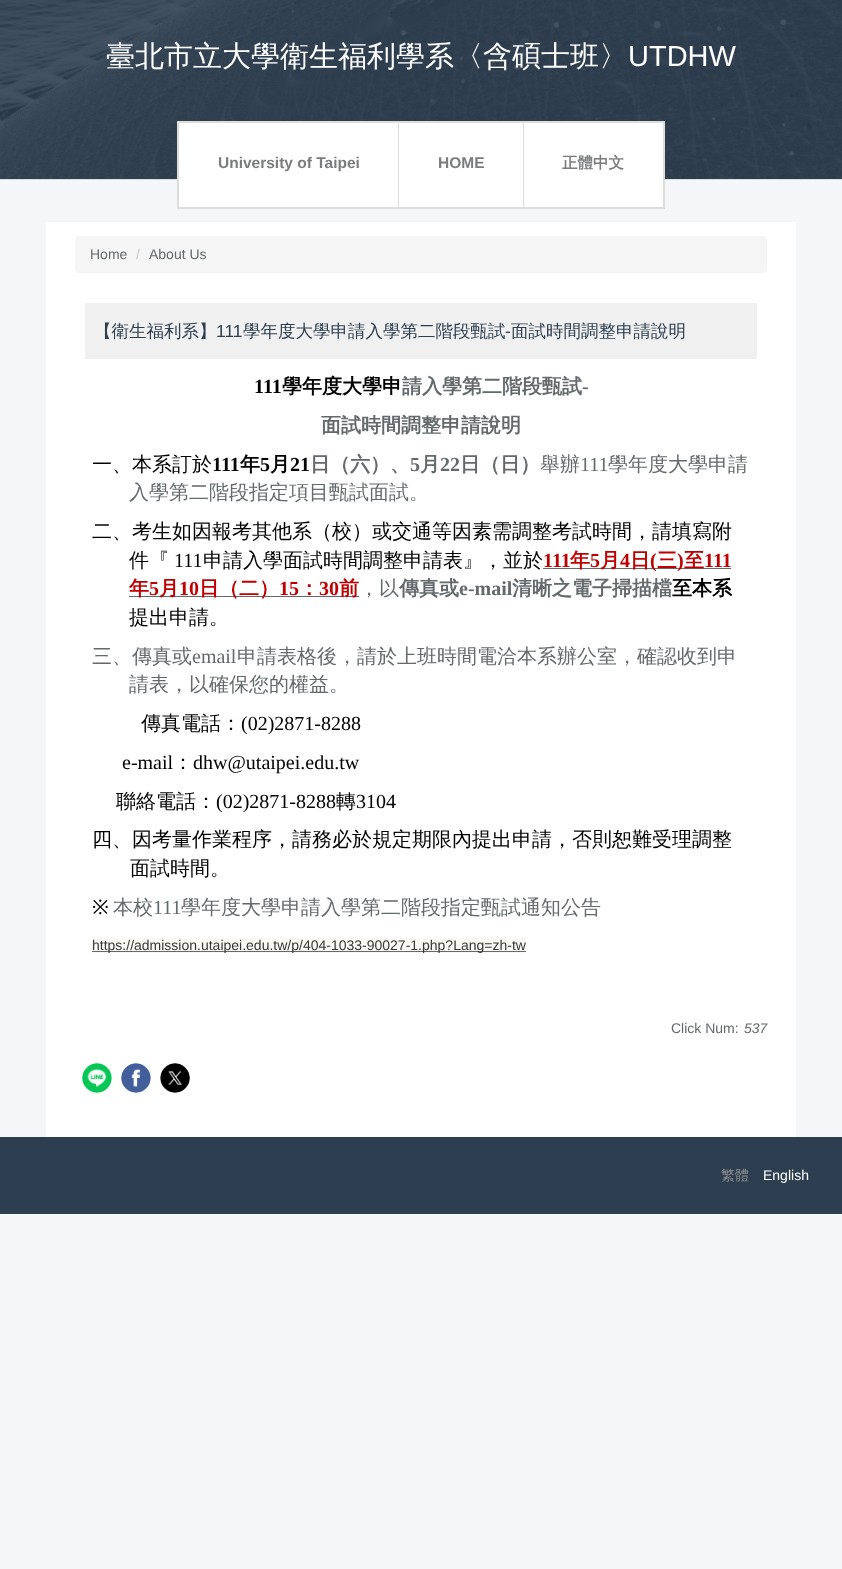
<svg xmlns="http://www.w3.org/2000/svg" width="842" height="1569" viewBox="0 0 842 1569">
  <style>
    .t1 { font: 500 29px WenQuanYi Zen Hei; fill: #fff; }
    .t2 { font: 29px Liberation Sans; fill: #fff; }
    .t3 { font: bold 15.5px Liberation Sans; fill: #7a7c7d; }
    .t4 { font: bold 15.5px WenQuanYi Zen Hei; fill: #7a7c7d; }
    .t5 { font: 14px Liberation Sans; fill: #64696c; }
    .t6 { font: 14px Liberation Sans; fill: #ccc; }
    .t7 { font: 500 17.5px WenQuanYi Zen Hei; fill: #2c3e50; }
    .t8 { font: 17.5px Liberation Sans; fill: #2c3e50; }
    .t9 { font: bold 20px Liberation Serif; fill: #000; }
    .t10 { font: bold 20px WenQuanYi Zen Hei; fill: #000; }
    .t11 { font: bold 20px WenQuanYi Zen Hei; fill: #64696c; }
    .t12 { font: bold 20px Liberation Serif; fill: #64696c; }
    .t13 { font: 500 20px WenQuanYi Zen Hei; fill: #000; }
    .t14 { font: 500 20px WenQuanYi Zen Hei; fill: #64696c; }
    .t15 { font: 20px Liberation Serif; fill: #64696c; }
    .t16 { font: 20px Liberation Serif; fill: #000; }
    .t17 { font: bold 20px Liberation Serif; fill: #c00000; }
    .t18 { font: bold 20px WenQuanYi Zen Hei; fill: #c00000; }
    .t19 { font: 20px Noto Sans; fill: #000; }
    .t20 { font: 14px Liberation Sans; fill: #373737; }
    .t21 { font: italic 14px Liberation Sans; fill: #64696c; }
    .t22 { font: 500 14px WenQuanYi Zen Hei; fill: #929292; }
    .t23 { font: 14px Liberation Sans; fill: #fff; }
  </style>
  <rect width="100%" height="100%" fill="#f4f6f7"/>
  <image x="0" y="0" width="842" height="180" href="images/1.png"/>
  <text x="106" y="66" class="t1">臺北市立大學衛生福利學系〈含碩士班〉</text>
  <text x="628" y="66" class="t2">UTDHW</text>
  <rect x="178" y="122" width="486" height="86" fill="#fff" stroke="#ddd" stroke-width="2"/>
  <rect x="398" y="123" width="1" height="84" fill="#ddd"/>
  <text x="218" y="168" class="t3">University of Taipei</text>
  <rect x="523" y="123" width="1" height="84" fill="#ddd"/>
  <text x="438" y="168" class="t3">HOME</text>
  <text x="562" y="168" class="t4">正體中文</text>
  <rect x="46" y="222" width="750" height="915" fill="#fff"/>
  <rect x="75" y="236" width="692" height="37" rx="4" fill="#f5f5f5"/>
  <text x="90" y="259" class="t5">Home</text>
  <text x="136" y="259" class="t6">/</text>
  <text x="149" y="259" class="t5">About Us</text>
  <rect x="85" y="303" width="672" height="56" fill="#f0f0f0"/>
  <text x="94" y="337" class="t7">【衛生福利系】</text>
  <text x="216" y="337" class="t8">111</text>
  <text x="243" y="337" class="t7">學年度大學申請入學第二階段甄試</text>
  <text x="505" y="337" class="t8">-</text>
  <text x="511" y="337" class="t7">面試時間調整申請說明</text>
  <text x="254" y="393" class="t9">111</text>
  <text x="282" y="393" class="t10">學年度大學申</text>
  <text x="402" y="393" class="t11">請入學第二階段甄試</text>
  <text x="582" y="393" class="t12">-</text>
  <text x="321" y="432" class="t11">面試時間調整申請說明</text>
  <text x="92" y="471" class="t13">一、本系訂於</text>
  <text x="212" y="471" class="t9">111</text>
  <text x="240" y="471" class="t10">年</text>
  <text x="260" y="471" class="t9">5</text>
  <text x="270" y="471" class="t10">月</text>
  <text x="290" y="471" class="t9">21</text>
  <text x="310" y="471" class="t11">日（六）、</text>
  <text x="410" y="471" class="t12">5</text>
  <text x="420" y="471" class="t11">月</text>
  <text x="440" y="471" class="t12">22</text>
  <text x="460" y="471" class="t11">日（日）</text>
  <text x="540" y="471" class="t14">舉辦</text>
  <text x="580" y="471" class="t15">111</text>
  <text x="608" y="471" class="t14">學年度大學申請</text>
  <text x="129" y="499" class="t14">入學第二階段指定項目甄試面試。</text>
  <text x="92" y="538" class="t13">二、考生如因報考其他系（校）或交通等因素需調整考試時間，請填寫附</text>
  <text x="129" y="567" class="t13">件『</text>
  <text x="174" y="567" class="t16">111</text>
  <text x="203" y="567" class="t13">申請入學面試時間調整申請表』，並於</text>
  <text x="543" y="567" class="t17">111</text>
  <rect x="543" y="568" width="188" height="1" fill="#64696c"/>
  <text x="570" y="567" class="t18">年</text>
  <text x="590" y="567" class="t17">5</text>
  <text x="600" y="567" class="t18">月</text>
  <text x="620" y="567" class="t17">4</text>
  <text x="630" y="567" class="t18">日</text>
  <text x="650" y="567" class="t17">(</text>
  <text x="657" y="567" class="t18">三</text>
  <text x="677" y="567" class="t17">)</text>
  <text x="684" y="567" class="t18">至</text>
  <text x="704" y="567" class="t17">111</text>
  <rect x="129" y="596" width="230" height="1" fill="#64696c"/>
  <text x="129" y="595" class="t18">年</text>
  <text x="149" y="595" class="t17">5</text>
  <text x="159" y="595" class="t18">月</text>
  <text x="179" y="595" class="t17">10</text>
  <text x="199" y="595" class="t18">日（二）</text>
  <text x="279" y="595" class="t17">15</text>
  <text x="299" y="595" class="t18">：</text>
  <text x="319" y="595" class="t17">30</text>
  <text x="339" y="595" class="t18">前</text>
  <text x="359" y="595" class="t14">，以</text>
  <text x="399" y="595" class="t11">傳真或</text>
  <text x="459" y="595" class="t12">e-mail</text>
  <text x="512" y="595" class="t11">清晰之電子掃描檔</text>
  <text x="672" y="595" class="t10">至本系</text>
  <text x="129" y="624" class="t13">提出申請。</text>
  <text x="92" y="663" class="t14">三、傳真或</text>
  <text x="192" y="663" class="t15">email</text>
  <text x="237" y="663" class="t14">申請表格後，請於上班時間電洽本系辦公室，確認收到申</text>
  <text x="129" y="691" class="t14">請表，以確保您的權益。</text>
  <text x="141" y="730" class="t13">傳真電話：</text>
  <text x="241" y="730" class="t16">(02)2871-8288</text>
  <text x="122" y="769" class="t16">e-mail</text>
  <text x="173" y="769" class="t13">：</text>
  <text x="193" y="769" class="t16">dhw@utaipei.edu.tw</text>
  <text x="116" y="808" class="t13">聯絡電話：</text>
  <text x="216" y="808" class="t16">(02)2871-8288</text>
  <text x="336" y="808" class="t13">轉</text>
  <text x="356" y="808" class="t16">3104</text>
  <text x="92" y="846" class="t13">四、因考量作業程序，請務必於規定期限內提出申請，否則恕難受理調整</text>
  <text x="130" y="875" class="t13">面試時間。</text>
  <text x="92" y="914" class="t19">※</text>
  <text x="113" y="914" class="t14">本校</text>
  <text x="153" y="914" class="t15">111</text>
  <text x="181" y="914" class="t14">學年度大學申請入學第二階段指定甄試通知公告</text>
  <rect x="92" y="938" width="434" height="15" fill="#faf9f3"/>
  <rect x="92" y="951" width="434" height="1" fill="#64696c"/>
  <text x="92" y="950" class="t20">https://admission.utaipei.edu.tw/p/404-1033-90027-1.php?Lang=zh-tw</text>
  <text x="671" y="1033" class="t5">Click Num:</text>
  <text x="744" y="1033" class="t21">537</text>
  <image x="82" y="1063" width="30" height="30" href="images/2.png"/>
  <image x="121" y="1063" width="30" height="30" href="images/3.png"/>
  <image x="160" y="1063" width="30" height="30" href="images/4.png"/>
  <rect x="0" y="1137" width="842" height="77" fill="#2c3e50"/>
  <text x="721" y="1180" class="t22">繁體</text>
  <text x="763" y="1180" class="t23">English</text>
</svg>
